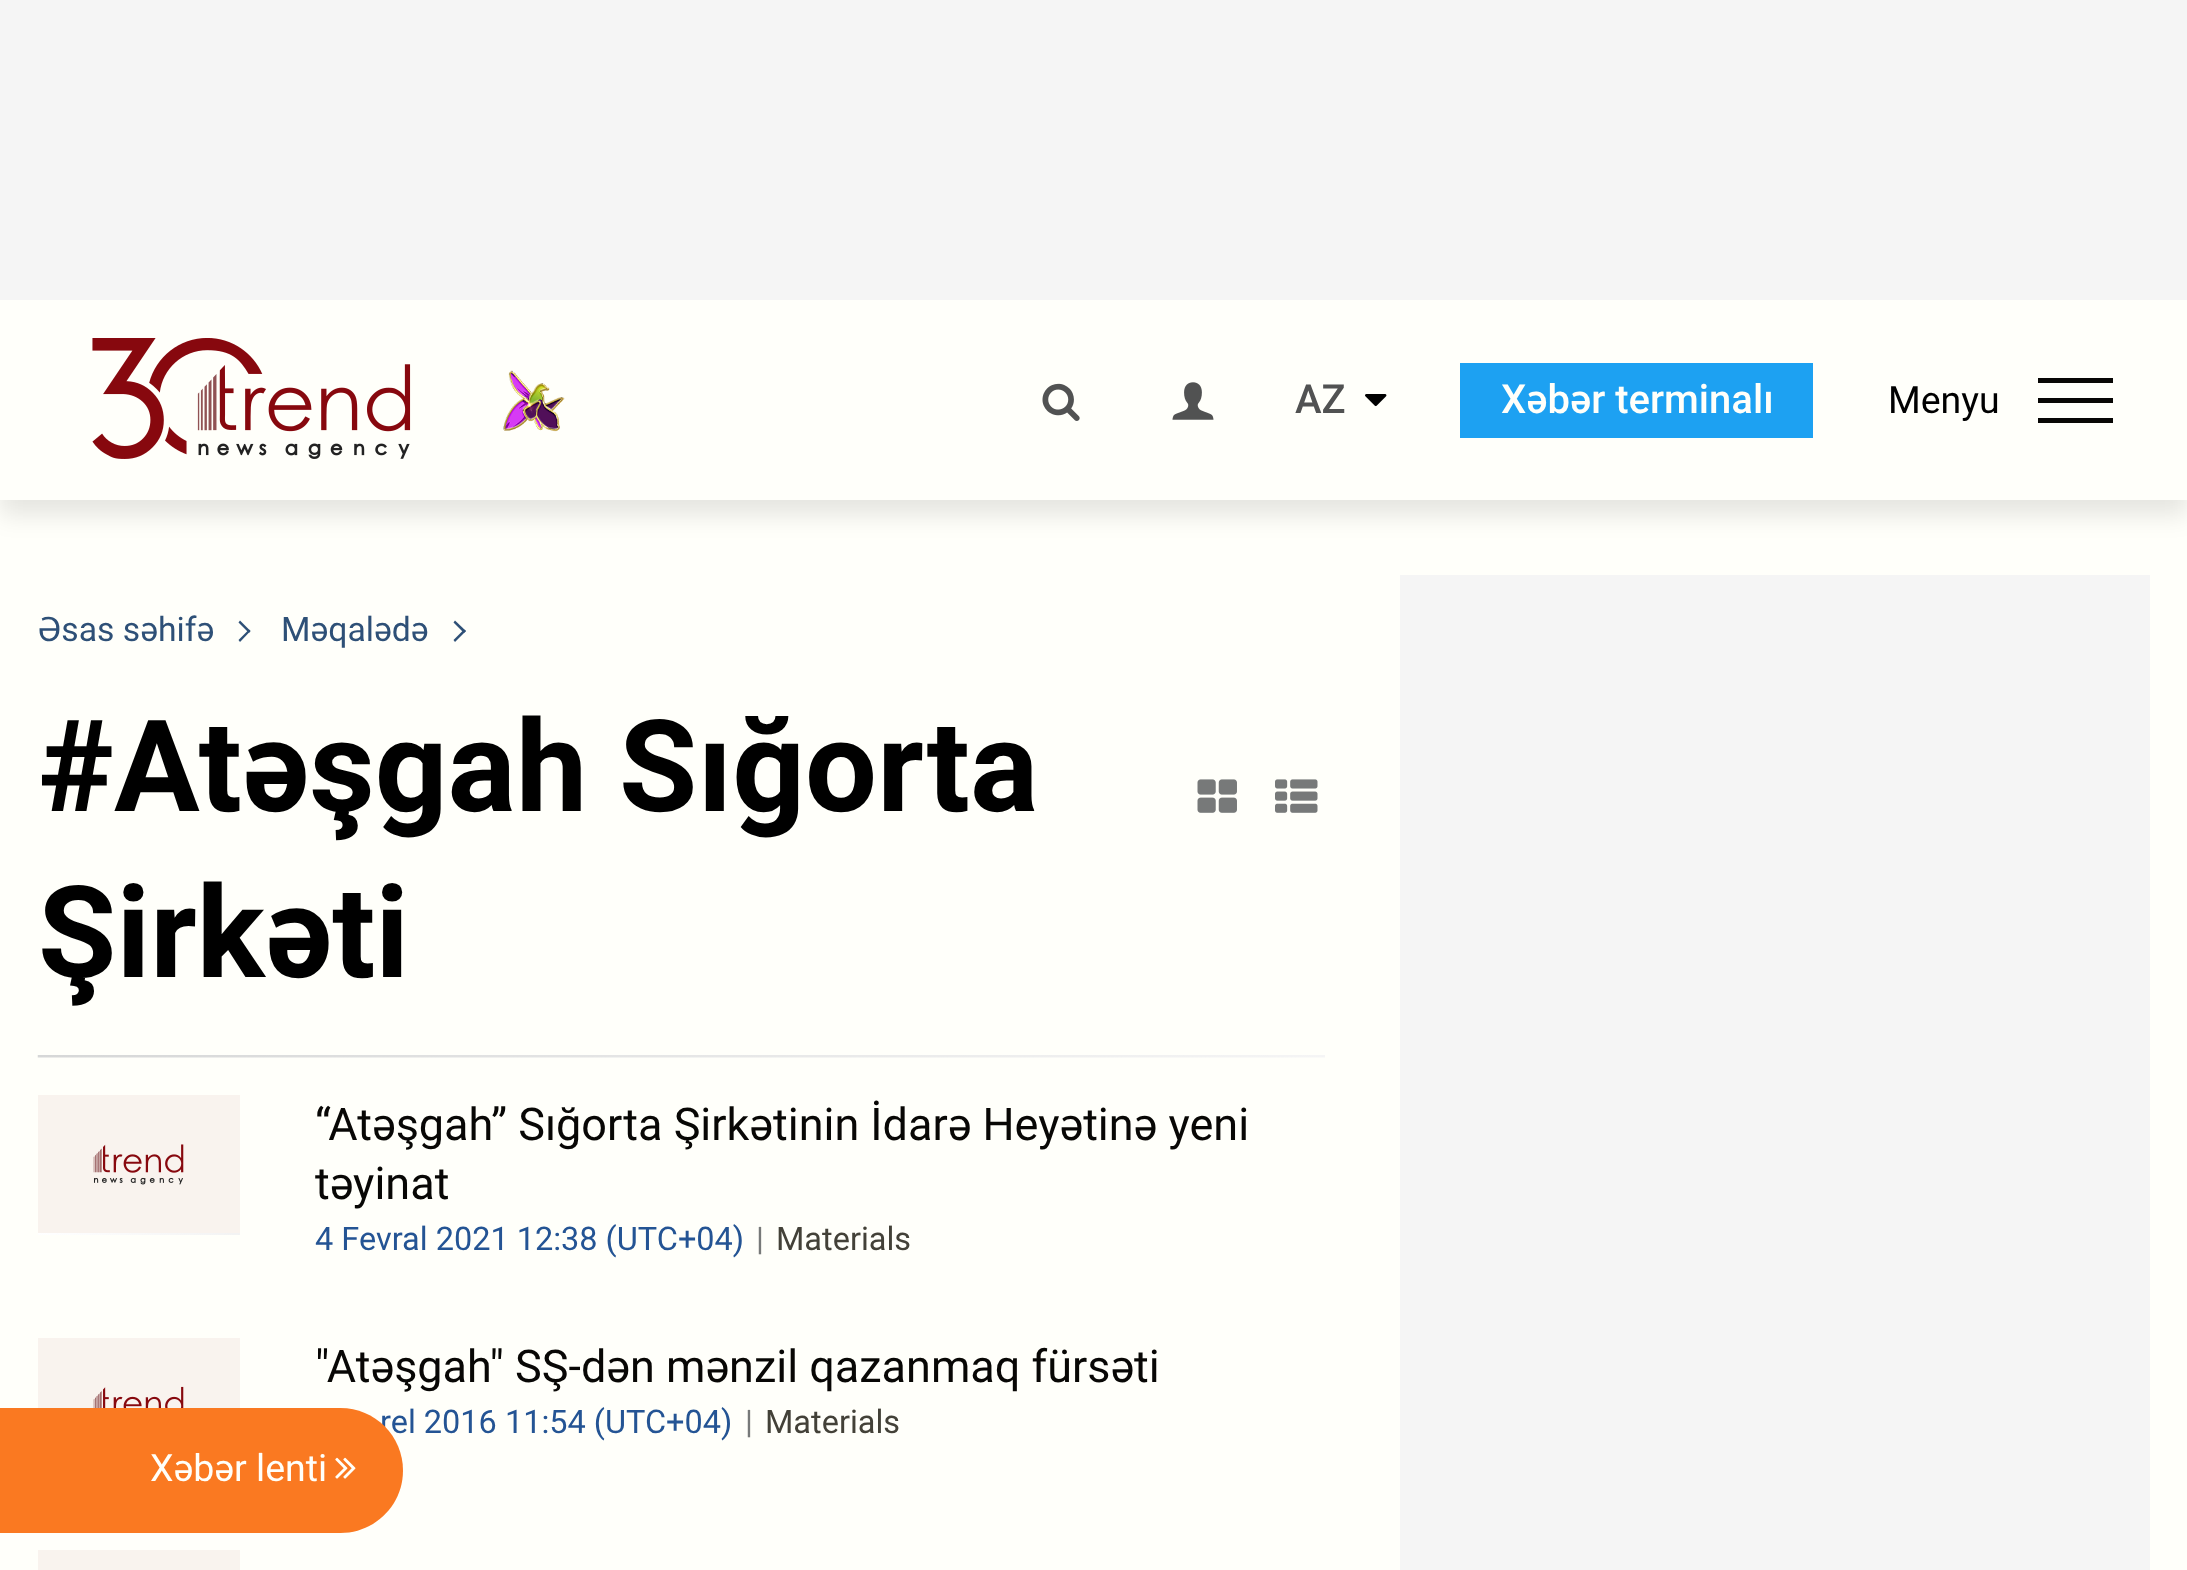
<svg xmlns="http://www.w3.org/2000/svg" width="2187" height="1570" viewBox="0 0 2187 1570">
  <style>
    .t1 { font: 500 40px Roboto; fill: #515252; }
    .t2 { font: 500 40px Roboto; fill: #fffffa; }
    .t3 { font: 37.5px Roboto; fill: #000; }
    .t4 { font: 33.75px Roboto; fill: #2e5077; }
    .t5 { font: bold 127.5px Roboto; fill: #000; }
    .t6 { font: 45px Roboto; fill: #080705; }
    .t7 { font: 32.5px Roboto; fill: #245494; }
    .t8 { font: 32.5px Roboto; fill: #777979; }
    .t9 { font: 32.5px Roboto; fill: #434138; }
    .t10 { font: 37.5px Roboto; fill: #fffffa; }
  </style>
  <defs>
    <linearGradient id="g1" gradientUnits="userSpaceOnUse" x1="53" y1="1251" x2="224" y2="1079"><stop offset="0" stop-color="#fff"/><stop offset="0.5" stop-color="#f5f5f5"/><stop offset="1" stop-color="#e8e8e8"/></linearGradient>
  </defs>
  <rect width="100%" height="100%" fill="#fffffa"/>
  <rect x="0" y="315" width="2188" height="200" fill="#0000001a" filter="blur(12.5px)"/>
  <rect x="0" y="0" width="2187" height="300" fill="#f5f5f5"/>
  <rect x="0" y="300" width="2187" height="200" fill="#fffffa"/>
  <image x="92" y="338" width="319" height="121" href="images/1.png"/>
  <image x="503" y="370" width="62" height="62" href="images/2.png"/>
  <image x="1042" y="383" width="38" height="38" href="images/3.png"/>
  <image x="1172" y="382" width="42" height="38" href="images/4.png"/>
  <text x="1295" y="413" class="t1">AZ</text>
  <image x="1365" y="394" width="22" height="13" href="images/5.png"/>
  <rect x="1460" y="363" width="353" height="75" fill="#1da1f2"/>
  <text x="1501" y="413" class="t2">Xəbər terminalı</text>
  <text x="1888" y="413" class="t3">Menyu</text>
  <rect x="2038" y="378" width="75" height="5" fill="#080705"/>
  <rect x="2038" y="398" width="75" height="5" fill="#080705"/>
  <rect x="2038" y="418" width="75" height="5" fill="#080705"/>
  <text x="38" y="641" class="t4">Əsas səhifə</text>
  <path d="M240 620.5L250.5 631L249 633L238.5 622.5Z" fill="#2e5077"/>
  <path d="M249 629.5L250.5 631L240 642L238.5 640Z" fill="#2e5077"/>
  <text x="281" y="641" class="t4">Məqalədə</text>
  <path d="M455 620.5L466 631L464 633L453.5 622.5Z" fill="#2e5077"/>
  <path d="M464 629.5L466 631L455 642L453.5 640Z" fill="#2e5077"/>
  <image x="37" y="1055" width="1288" height="3" href="images/6.png"/>
  <text x="38" y="811" class="t5">#Atəşgah Sığorta</text>
  <text x="38" y="977" class="t5">Şirkəti</text>
  <image x="1197" y="779" width="40" height="34" href="images/7.png"/>
  <image x="1275" y="779" width="43" height="34" href="images/8.png"/>
  <rect x="38" y="1233" width="202" height="2" fill="url(#g1)"/>
  <image x="38" y="1095" width="202" height="138" href="images/9.png"/>
  <text x="315" y="1140" class="t6">“Atəşgah” Sığorta Şirkətinin İdarə Heyətinə yeni</text>
  <text x="315" y="1199" class="t6">təyinat</text>
  <text x="315" y="1250" class="t7">4 Fevral 2021 12:38 (UTC+04)</text>
  <text x="756" y="1250" class="t8">|</text>
  <text x="776" y="1250" class="t9">Materials</text>
  <image x="38" y="1338" width="202" height="70" href="images/10.png"/>
  <text x="315" y="1382" class="t6">"Atəşgah" SŞ-dən mənzil qazanmaq fürsəti</text>
  <text x="380" y="1433" class="t7">rel 2016 11:54 (UTC+04)</text>
  <text x="745" y="1433" class="t8">|</text>
  <text x="765" y="1433" class="t9">Materials</text>
  <rect x="38" y="1550" width="202" height="20" fill="#f9f3ee"/>
  <rect x="1400" y="575" width="750" height="995" fill="#f5f5f5"/>
  <path d="M0 1408H340.5C375 1408 403 1436 403 1470.5C403 1505 375 1533 340.5 1533H0Z" fill="#fa7921"/>
  <text x="150" y="1481" class="t10">Xəbər lenti</text>
  <image x="335" y="1457" width="21" height="22" href="images/11.png"/>
</svg>
